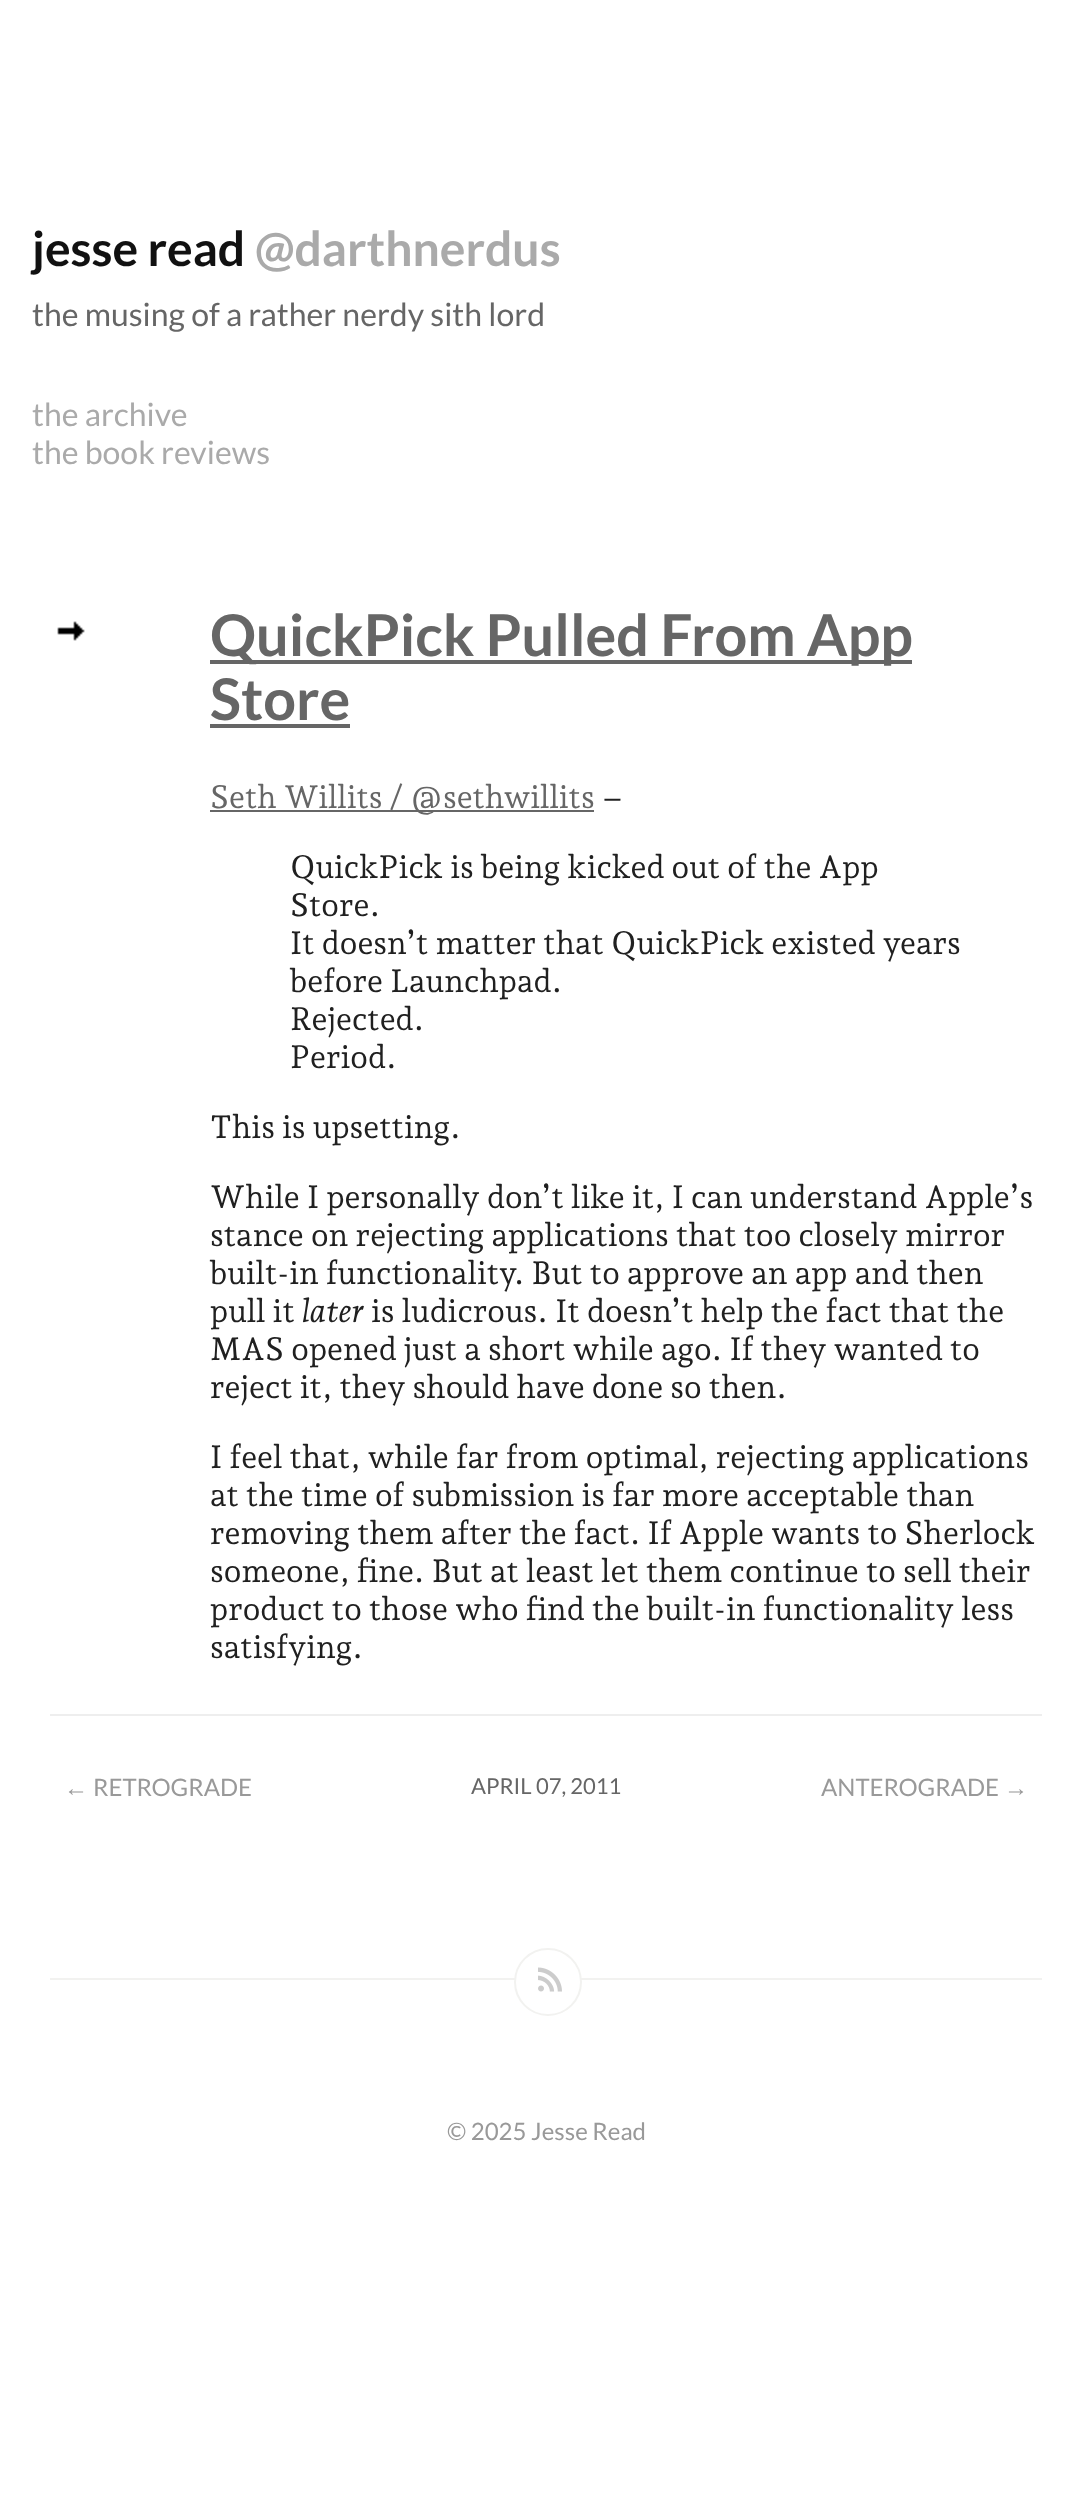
<svg xmlns="http://www.w3.org/2000/svg" width="1092" height="2511" viewBox="0 0 1092 2511">
  <style>
    .t1 { font: bold 48px Lato; fill: #111; }
    .t2 { font: bold 48px Lato; fill: #aaa; }
    .t3 { font: 32px Lato; fill: #666; }
    .t4 { font: 32px Lato; fill: #aaa; }
    .t5 { font: bold 57.6px Lato; fill: #666; }
    .t6 { font: 32px Andada Pro; fill: #666; }
    .t7 { font: 32px Andada Pro; fill: #202020; }
    .t8 { font: italic 32px Andada Pro; fill: #202020; }
    .t9 { font: 24px Liberation Sans; fill: #999; }
    .t10 { font: 24px Lato; fill: #999; }
    .t11 { font: 22px Lato; fill: #666; }
  </style>
  <rect width="100%" height="100%" fill="#fff"/>
  <text x="32" y="266" class="t1">jesse read</text>
  <text x="255" y="266" class="t2">@darthnerdus</text>
  <text x="32" y="326" class="t3">the musing of a rather nerdy sith lord</text>
  <text x="32" y="426" class="t4">the archive</text>
  <text x="32" y="464" class="t4">the book reviews</text>
  <rect x="50" y="1714" width="992" height="2" fill="#eee"/>
  <image x="57" y="621" width="28" height="20" href="images/1.png"/>
  <rect x="210" y="660" width="702" height="4" fill="#666"/>
  <text x="210" y="656" class="t5">QuickPick Pulled From App</text>
  <text x="210" y="720" class="t5">Store</text>
  <rect x="210" y="724" width="140" height="4" fill="#666"/>
  <rect x="210" y="810" width="384" height="2" fill="#666"/>
  <text x="210" y="808" class="t6">Seth Willits / @sethwillits</text>
  <text x="602" y="808" class="t7">–</text>
  <text x="290" y="878" class="t7">QuickPick is being kicked out of the App</text>
  <text x="290" y="916" class="t7">Store.</text>
  <text x="290" y="954" class="t7">It doesn’t matter that QuickPick existed years</text>
  <text x="290" y="992" class="t7">before Launchpad.</text>
  <text x="290" y="1030" class="t7">Rejected.</text>
  <text x="290" y="1068" class="t7">Period.</text>
  <text x="210" y="1138" class="t7">This is upsetting.</text>
  <text x="210" y="1208" class="t7">While I personally don’t like it, I can understand Apple’s</text>
  <text x="210" y="1246" class="t7">stance on rejecting applications that too closely mirror</text>
  <text x="210" y="1284" class="t7">built-in functionality. But to approve an app and then</text>
  <text x="210" y="1322" class="t7">pull it</text>
  <text x="302" y="1322" class="t8">later</text>
  <text x="371" y="1322" class="t7">is ludicrous. It doesn’t help the fact that the</text>
  <text x="210" y="1360" class="t7">MAS opened just a short while ago. If they wanted to</text>
  <text x="210" y="1398" class="t7">reject it, they should have done so then.</text>
  <text x="210" y="1468" class="t7">I feel that, while far from optimal, rejecting applications</text>
  <text x="210" y="1506" class="t7">at the time of submission is far more acceptable than</text>
  <text x="210" y="1544" class="t7">removing them after the fact. If Apple wants to Sherlock</text>
  <text x="210" y="1582" class="t7">someone, fine. But at least let them continue to sell their</text>
  <text x="210" y="1620" class="t7">product to those who find the built-in functionality less</text>
  <text x="210" y="1658" class="t7">satisfying.</text>
  <text x="64" y="1796" class="t9">←</text>
  <text x="93" y="1796" class="t10">RETROGRADE</text>
  <text x="471" y="1794" class="t11">APRIL 07, 2011</text>
  <text x="821" y="1796" class="t10">ANTEROGRADE</text>
  <text x="1004" y="1796" class="t9">→</text>
  <rect x="50" y="1978" width="992" height="2" fill="#f2f2f0"/>
  <circle cx="548" cy="1982" r="33" fill="#fff" stroke="#f2f2f0" stroke-width="2"/>
  <image x="538" y="1967" width="24" height="25" href="images/2.png"/>
  <text x="447" y="2140" class="t10">© 2025 Jesse Read</text>
</svg>
